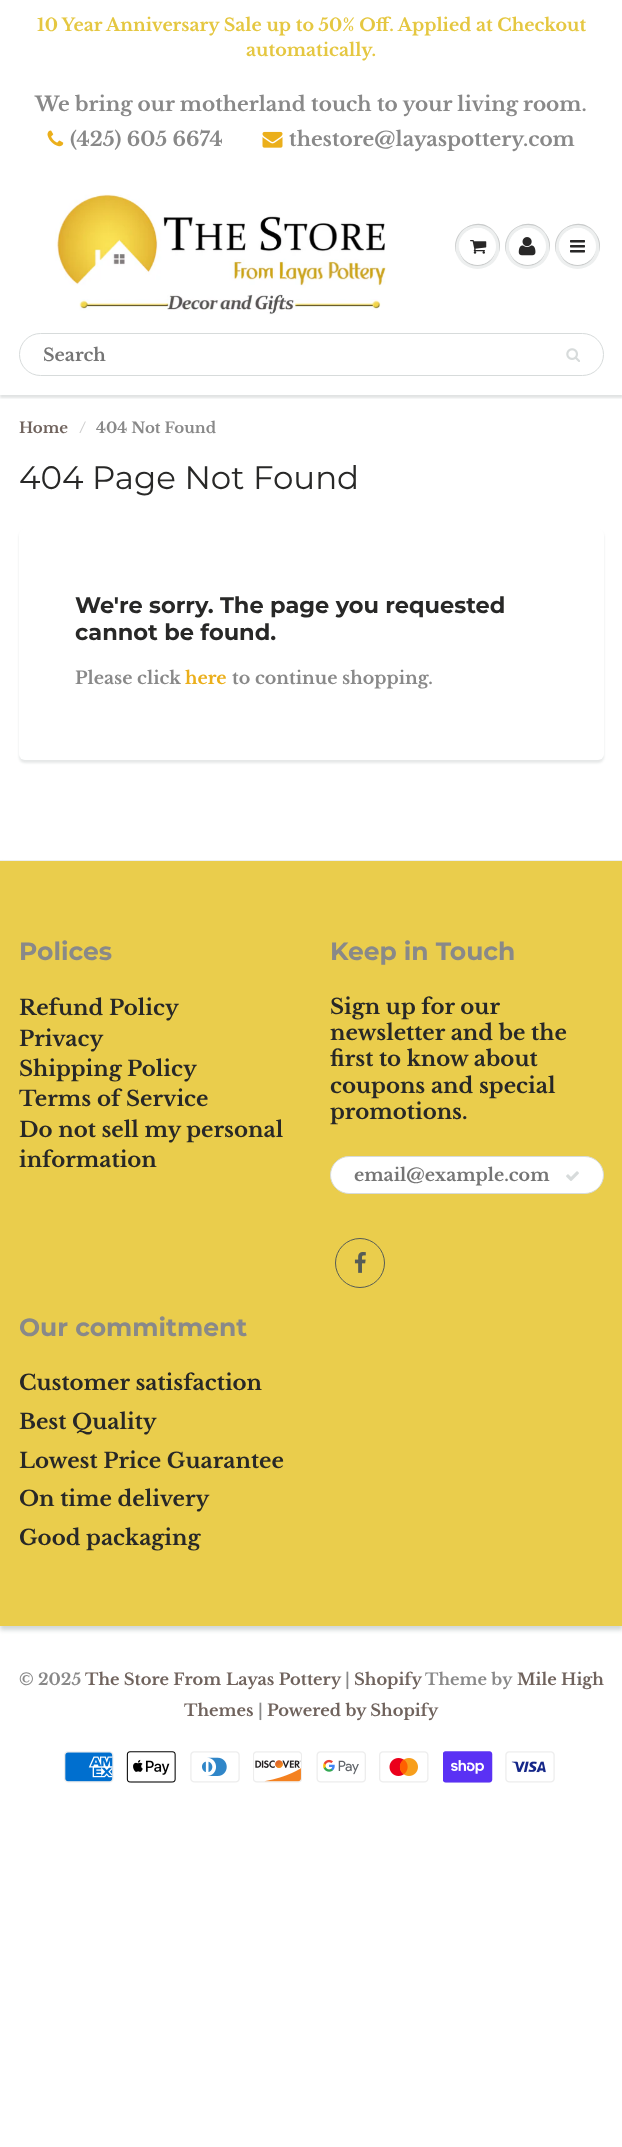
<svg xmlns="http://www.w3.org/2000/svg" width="622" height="2147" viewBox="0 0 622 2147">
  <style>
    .t1 { font: bold 17.5px Libre Baskerville; fill: #e5c741; }
    .t2 { font: bold 20px Libre Baskerville; fill: #898989; }
    .t3 { font: bold 17.5px Libre Baskerville; fill: #757575; }
    .t4 { font: bold 15px Libre Baskerville; fill: #70635d; }
    .t5 { font: bold 15px Libre Baskerville; fill: #ccc; }
    .t6 { font: bold 15px Libre Baskerville; fill: #898989; }
    .t7 { font: 32.5px Montserrat; fill: #282827; }
    .t8 { font: bold 22.5px Montserrat; fill: #282827; }
    .t9 { font: bold 17.5px Libre Baskerville; fill: #898989; }
    .t10 { font: bold 17.5px Libre Baskerville; fill: #ebaf1b; }
    .t11 { font: bold 25px Montserrat; fill: #898989; }
    .t12 { font: bold 21.25px Libre Baskerville; fill: #282827; }
    .t13 { font: bold 16.25px Libre Baskerville; fill: #898989; }
    .t14 { font: bold 16.25px Libre Baskerville; fill: #70635d; }
  </style>
  <defs>
    <clipPath id="clip1"><rect x="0" y="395" width="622" height="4"/></clipPath>
  </defs>
  <rect width="100%" height="100%" fill="#fff"/>
  <text x="37" y="31" class="t1">10 Year Anniversary Sale up to 50% Off. Applied at Checkout</text>
  <text x="246" y="56" class="t1">automatically.</text>
  <text x="35" y="111" class="t2">We bring our motherland touch to your living room.</text>
  <image x="47" y="130" width="17" height="17" href="images/1.png"/>
  <text x="70" y="146" class="t2">(425) 605 6674</text>
  <image x="262" y="131" width="21" height="17" href="images/2.png"/>
  <text x="289" y="146" class="t2">thestore@layaspottery.com</text>
  <g clip-path="url(#clip1)">
    <rect x="0" y="178" width="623" height="220" fill="#0b191c1f" filter="blur(1px)"/>
  </g>
  <image x="55" y="194" width="331" height="121" href="images/3.png"/>
  <circle cx="477.5" cy="246.5" r="22.5" fill="#edefef"/>
  <path d="M478 225C494 225 501 239 499 252C501 246 500 239 496 234C481 211 447 231 457 255C453 242 460 225 478 225Z" fill="#c9cbcb"/>
  <path d="M459.5 250.5C462.5 271 492.5 271 495.5 250.5C491 269.5 464 269.5 459.5 250.5Z" fill="#c9cbcb"/>
  <circle cx="477.5" cy="246.5" r="18.5" fill="#fff"/>
  <path d="M478 229C490 229 496 238 496 247C496 243 495 239.5 493 236C481 219 454.5 231.5 459.5 251C458 240.5 464 229 478 229Z" fill="#fff"/>
  <image x="470" y="240" width="17" height="14" href="images/4.png"/>
  <circle cx="527.5" cy="246.5" r="22.5" fill="#edefef"/>
  <path d="M528 225C544 225 551 239 549 252C551 246 550 239 546 234C531 211 497 231 507 255C503 242 510 225 528 225Z" fill="#c9cbcb"/>
  <path d="M509.5 250.5C512.5 271 542.5 271 545.5 250.5C541 269.5 514 269.5 509.5 250.5Z" fill="#c9cbcb"/>
  <circle cx="527.5" cy="246.5" r="18.5" fill="#fff"/>
  <path d="M528 229C540 229 546 238 546 247C546 243 545 239.5 543 236C531 219 504.5 231.5 509.5 251C508 240.5 514 229 528 229Z" fill="#fff"/>
  <image x="518" y="237" width="18" height="19" href="images/5.png"/>
  <circle cx="577.5" cy="246.5" r="22.5" fill="#edefef"/>
  <path d="M578 225C594 225 601 239 599 252C601 246 600 239 596 234C581 211 547 231 557 255C553 242 560 225 578 225Z" fill="#c9cbcb"/>
  <path d="M559.5 250.5C562.5 271 592.5 271 595.5 250.5C591 269.5 564 269.5 559.5 250.5Z" fill="#c9cbcb"/>
  <circle cx="577.5" cy="246.5" r="18.5" fill="#fff"/>
  <path d="M578 229C590 229 596 238 596 247C596 243 595 239.5 593 236C581 219 554.5 231.5 559.5 251C558 240.5 564 229 578 229Z" fill="#fff"/>
  <image x="570" y="240" width="15" height="13" href="images/6.png"/>
  <rect x="19.5" y="333.5" width="584" height="42" rx="21" fill="none" stroke="#d7dbdb"/>
  <text x="43" y="361" class="t3">Search</text>
  <image x="566" y="348" width="14" height="14" href="images/7.png"/>
  <text x="19" y="433" class="t4">Home</text>
  <text x="79" y="433" class="t5">/</text>
  <text x="96" y="433" class="t6">404 Not Found</text>
  <text x="19" y="489" class="t7">404 Page Not Found</text>
  <rect x="19" y="531" width="585" height="232" rx="6" fill="#0b191c1a" filter="blur(1px)"/>
  <rect x="19" y="529" width="585" height="231" rx="6" fill="#fff"/>
  <text x="75" y="613" class="t8">We're sorry. The page you requested</text>
  <text x="75" y="640" class="t8">cannot be found.</text>
  <text x="75" y="684" class="t9">Please click</text>
  <text x="185" y="684" class="t10">here</text>
  <text x="232" y="684" class="t9">to continue shopping.</text>
  <rect x="0" y="864" width="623" height="766" fill="#d1d7d7" filter="blur(2px)"/>
  <rect x="0" y="861" width="622" height="765" fill="#eacd4c"/>
  <rect x="0" y="860" width="622" height="1" fill="#ecefef"/>
  <text x="19" y="960" class="t11">Polices</text>
  <text x="19" y="1015" class="t12">Refund Policy</text>
  <text x="19" y="1046" class="t12">Privacy</text>
  <text x="19" y="1076" class="t12">Shipping Policy</text>
  <text x="19" y="1106" class="t12">Terms of Service</text>
  <text x="19" y="1137" class="t12">Do not sell my personal</text>
  <text x="19" y="1167" class="t12">information</text>
  <text x="330" y="960" class="t11">Keep in Touch</text>
  <text x="330" y="1014" class="t12">Sign up for our</text>
  <text x="330" y="1040" class="t12">newsletter and be the</text>
  <text x="330" y="1066" class="t12">first to know about</text>
  <text x="330" y="1093" class="t12">coupons and special</text>
  <text x="330" y="1119" class="t12">promotions.</text>
  <rect x="330.5" y="1156.5" width="273" height="37" rx="18.5" fill="#fff" stroke="#d7dbdb"/>
  <text x="354" y="1181" class="t3">email@example.com</text>
  <image x="566" y="1171" width="13" height="10" href="images/8.png"/>
  <circle cx="360" cy="1263" r="24.5" fill="none" stroke="#565c56"/>
  <image x="354" y="1252" width="12" height="21" href="images/9.png"/>
  <text x="19" y="1336" class="t11">Our commitment</text>
  <text x="19" y="1390" class="t12">Customer satisfaction</text>
  <text x="19" y="1429" class="t12">Best Quality</text>
  <text x="19" y="1468" class="t12">Lowest Price Guarantee</text>
  <text x="19" y="1506" class="t12">On time delivery</text>
  <text x="19" y="1545" class="t12">Good packaging</text>
  <text x="19" y="1685" class="t13">© 2025</text>
  <text x="85" y="1685" class="t14">The Store From</text>
  <text x="226" y="1685" class="t14">Layas Pottery</text>
  <text x="345" y="1685" class="t13">|</text>
  <text x="354" y="1685" class="t14">Shopify</text>
  <text x="425" y="1685" class="t13">Theme by</text>
  <text x="517" y="1685" class="t14">Mile High</text>
  <text x="184" y="1716" class="t14">Themes</text>
  <text x="258" y="1716" class="t13">|</text>
  <text x="267" y="1716" class="t14">Powered by Shopify</text>
  <image x="64" y="1751" width="50" height="32" href="images/10.png"/>
  <image x="126" y="1751" width="50" height="32" href="images/11.png"/>
  <image x="190" y="1751" width="50" height="32" href="images/12.png"/>
  <image x="253" y="1751" width="49" height="32" href="images/13.png"/>
  <image x="316" y="1751" width="50" height="32" href="images/14.png"/>
  <image x="379" y="1751" width="50" height="32" href="images/15.png"/>
  <image x="443" y="1751" width="50" height="32" href="images/16.png"/>
  <image x="505" y="1751" width="50" height="32" href="images/17.png"/>
</svg>
